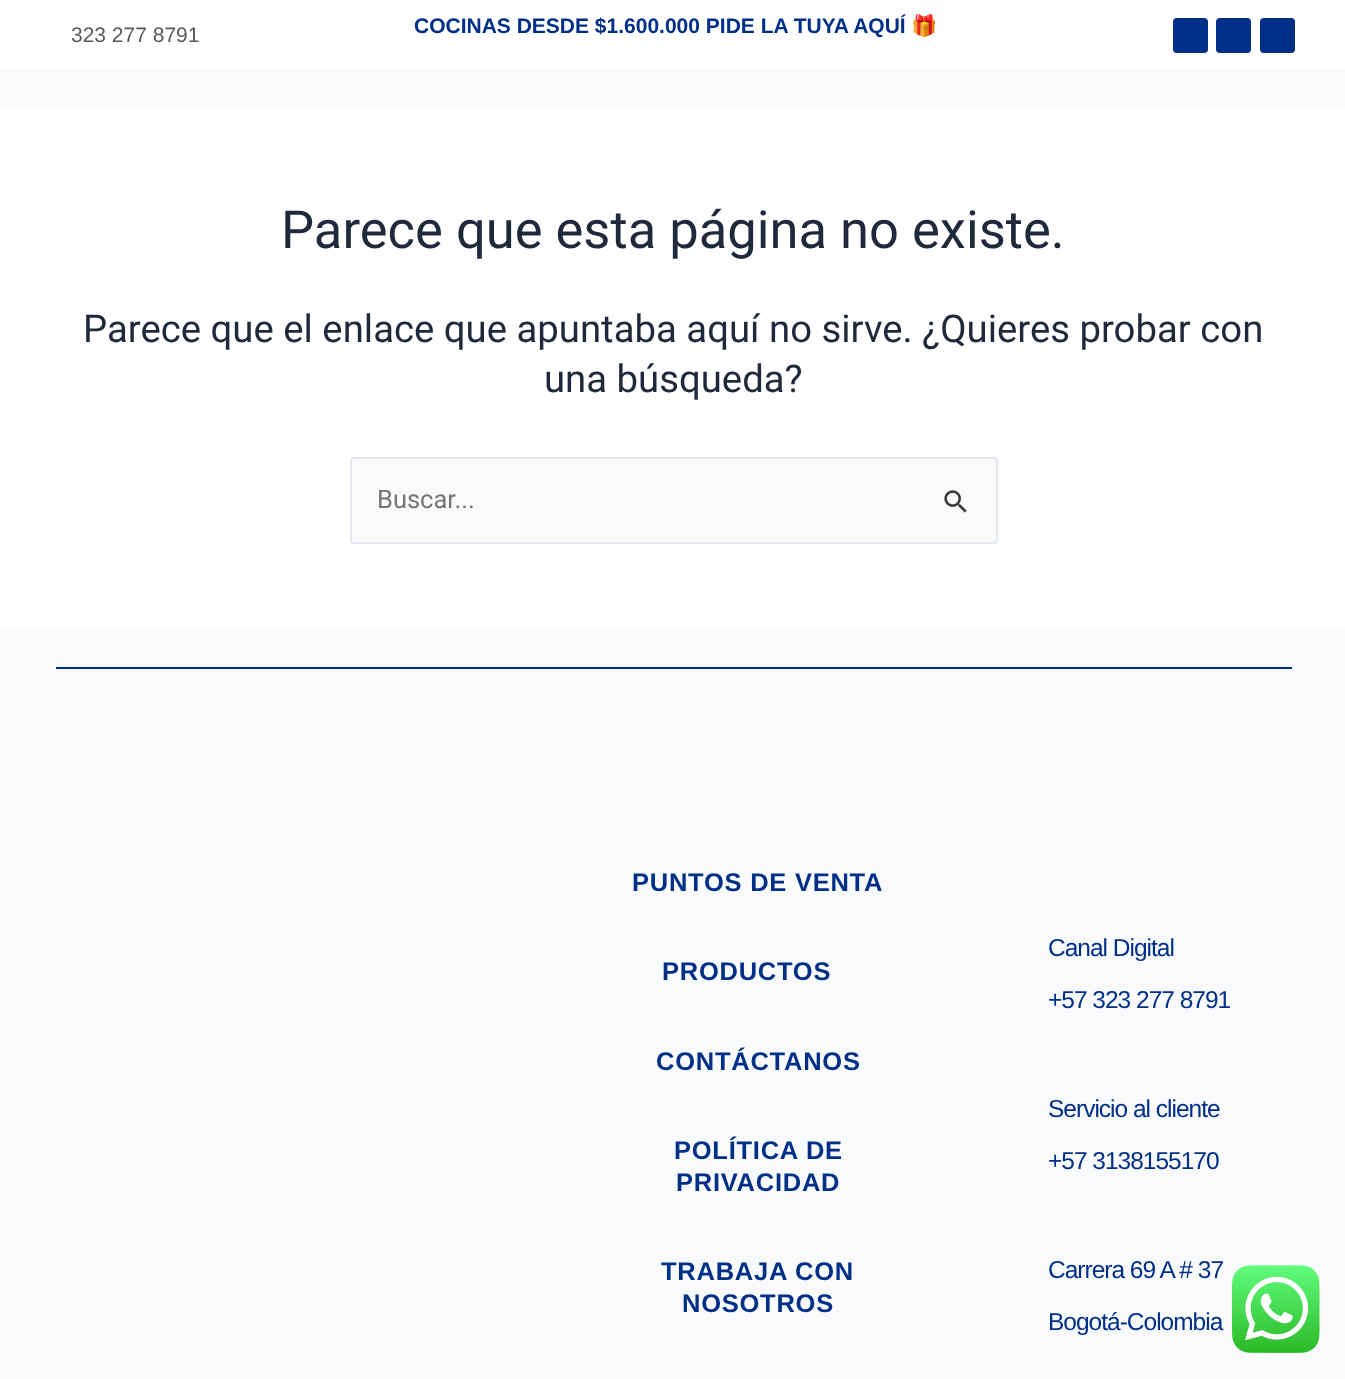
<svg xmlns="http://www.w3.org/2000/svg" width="1345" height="1379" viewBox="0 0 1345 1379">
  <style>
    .t1 { font: 21px Liberation Sans; fill: #54595f; }
    .t2 { font: bold 21px Liberation Sans; fill: #002f87; }
    .t3 { font: bold 21px Noto Color Emoji; fill: #002f87; }
    .t4 { font: 52.5px Roboto; fill: #1e293b; }
    .t5 { font: 38.3px Roboto; fill: #1e293b; }
    .t6 { font: 25.5px Roboto; fill: #757575; }
    .t7 { font: bold 25.5px Liberation Sans; letter-spacing: 0.75px; fill: #002f87; }
    .t8 { font: 24.5px Liberation Sans; letter-spacing: -1px; fill: #002f87; }
  </style>
  <rect width="100%" height="100%" fill="#f9fafb"/>
  <rect x="0" y="0" width="1345" height="70" fill="#fff"/>
  <text x="71" y="42" class="t1">323 277 8791</text>
  <text x="414" y="33" class="t2">COCINAS DESDE $1.600.000 PIDE LA TUYA AQUÍ</text>
  <text x="911" y="33" class="t3">🎁</text>
  <rect x="1173" y="18" width="35" height="35" rx="4" fill="#002f87"/>
  <rect x="1216" y="18" width="35" height="35" rx="4" fill="#002f87"/>
  <rect x="1260" y="18" width="35" height="35" rx="4" fill="#002f87"/>
  <rect x="0" y="109" width="1345" height="519" fill="#fff"/>
  <text x="281" y="248" class="t4">Parece que esta página no existe.</text>
  <text x="83" y="342" class="t5">Parece que el enlace que apuntaba aquí no sirve. ¿Quieres probar con</text>
  <text x="544" y="392" class="t5">una búsqueda?</text>
  <rect x="351" y="458" width="646" height="85" rx="3" fill="#fafafa" stroke="#e2e8f0" stroke-width="2"/>
  <text x="377" y="508" class="t6">Buscar...</text>
  <image x="944" y="490" width="23" height="23" href="images/1.png"/>
  <rect x="56" y="667" width="1236" height="2" fill="#002f87"/>
  <text x="632" y="891" class="t7">PUNTOS DE VENTA</text>
  <text x="662" y="980" class="t7">PRODUCTOS</text>
  <text x="656" y="1070" class="t7">CONTÁCTANOS</text>
  <text x="674" y="1159" class="t7">POLÍTICA DE</text>
  <text x="676" y="1191" class="t7">PRIVACIDAD</text>
  <text x="661" y="1280" class="t7">TRABAJA CON</text>
  <text x="682" y="1312" class="t7">NOSOTROS</text>
  <text x="1048" y="956" class="t8">Canal Digital</text>
  <text x="1048" y="1008" class="t8">+57 323 277 8791</text>
  <text x="1048" y="1117" class="t8">Servicio al cliente</text>
  <text x="1048" y="1169" class="t8">+57 3138155170</text>
  <text x="1048" y="1278" class="t8">Carrera 69 A # 37</text>
  <text x="1048" y="1330" class="t8">Bogotá-Colombia</text>
  <image x="1232" y="1265" width="88" height="88" href="images/2.png"/>
</svg>
